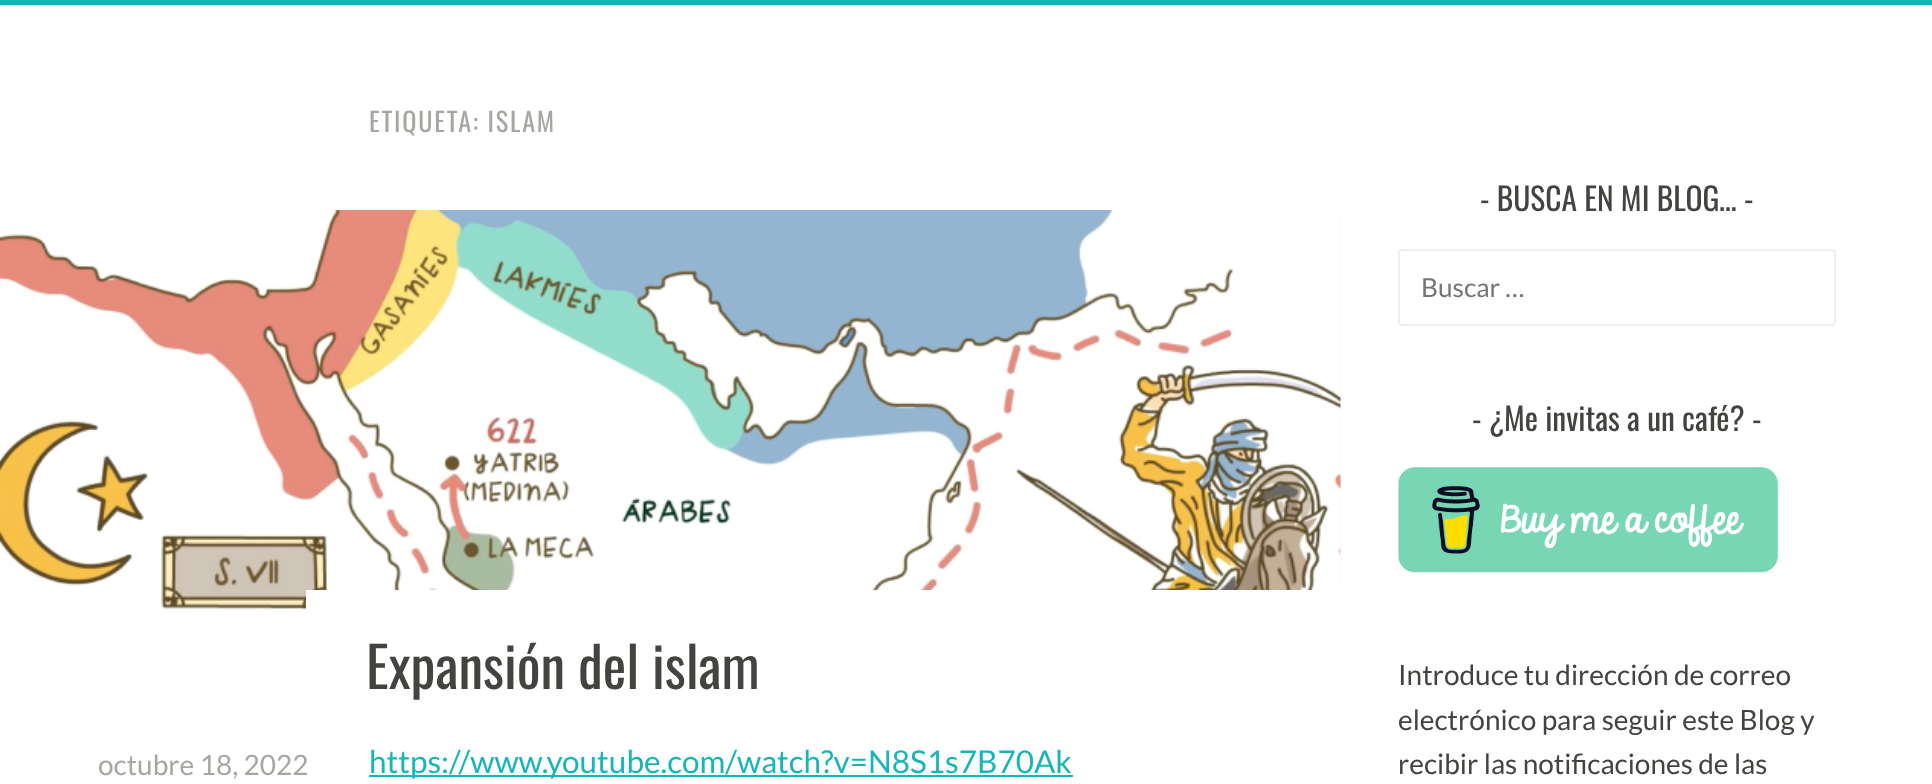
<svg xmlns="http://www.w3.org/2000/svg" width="1932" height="784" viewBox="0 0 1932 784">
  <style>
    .t1 { font: 26.25px Oswald; letter-spacing: 1.75px; fill: #a8a6a1; }
    .t2 { font: 56px Oswald; fill: #444340; }
    .t3 { font: 28px Lato; fill: #a8a6a1; }
    .t4 { font: 31.5px Lato; fill: #15b6b8; }
    .t5 { font: 31.5px Oswald; fill: #444340; }
    .t6 { font: 26.25px Lato; fill: #757575; }
    .t7 { font: 28px Lato; fill: #444340; }
  </style>
  <rect width="100%" height="100%" fill="#15b6b8"/>
  <rect x="0" y="2" width="1932" height="3" fill="#14b1b2"/>
  <rect x="0" y="5" width="1932" height="779" fill="#fff"/>
  <text x="369" y="132" class="t1">ETIQUETA: ISLAM</text>
  <rect x="1340" y="210" width="1" height="380" fill="#f8f9f8"/>
  <image x="0" y="210" width="1341" height="476" href="images/1.png"/>
  <rect x="306" y="590" width="1035" height="96" fill="#fff"/>
  <text x="366" y="689" class="t2">Expansión del islam</text>
  <text x="98" y="775" class="t3">octubre 18, 2022</text>
  <rect x="369" y="775" width="704" height="2" fill="#15b6b8"/>
  <text x="369" y="773" class="t4">https://www.youtube.com/watch?v=N8S1s7B70Ak</text>
  <text x="1480" y="211" class="t5">- BUSCA EN MI BLOG… -</text>
  <rect x="1399" y="250" width="436" height="75" rx="3" fill="none" stroke="#eee" stroke-width="2"/>
  <text x="1421" y="297" class="t6">Buscar …</text>
  <text x="1472" y="431" class="t5">- ¿Me invitas a un café? -</text>
  <image x="1398" y="467" width="380" height="106" href="images/2.png"/>
  <text x="1398" y="685" class="t7">Introduce tu dirección de correo</text>
  <text x="1398" y="730" class="t7">electrónico para seguir este Blog y</text>
  <text x="1398" y="774" class="t7">recibir las notificaciones de las</text>
</svg>
